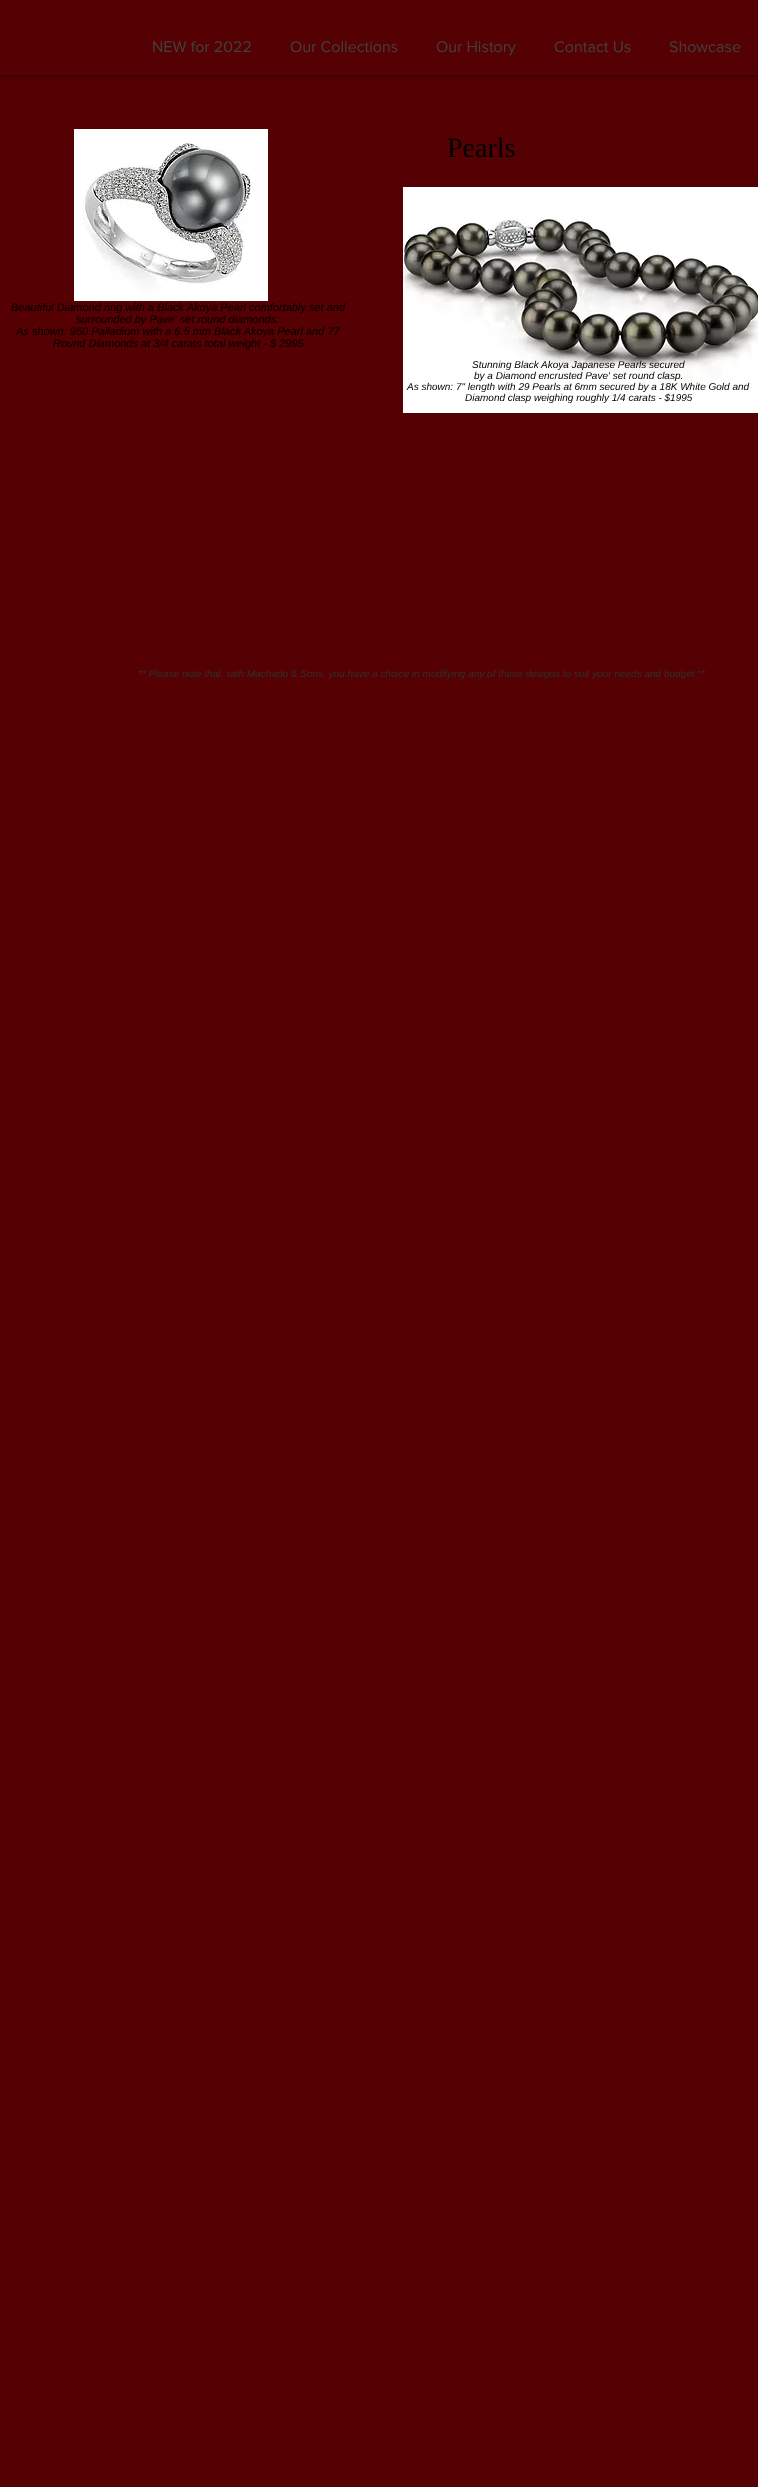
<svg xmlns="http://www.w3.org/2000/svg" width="758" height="2487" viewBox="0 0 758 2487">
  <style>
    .t1 { font: 16px 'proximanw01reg'; fill: #414141; }
    .t2 { font: 28px Liberation Serif; fill: #010101; }
    .t3 { font: italic 11px Liberation Sans; fill: #010101; }
    .t4 { font: italic 10px Liberation Sans; fill: #010101; }
    .t5 { font: italic 10px Liberation Sans; fill: #303030; }
  </style>
  <defs>
    <clipPath id="clip1"><rect x="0" y="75" width="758" height="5"/></clipPath>
  </defs>
  <rect width="100%" height="100%" fill="#550002"/>
  <g clip-path="url(#clip1)">
    <rect x="0" y="0" width="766" height="75" fill="#000000b3" filter="blur(2.5px)"/>
  </g>
  <text x="152" y="52" class="t1">NEW for 2022</text>
  <text x="290" y="52" class="t1">Our Collections</text>
  <text x="436" y="52" class="t1">Our History</text>
  <text x="554" y="52" class="t1">Contact Us</text>
  <text x="669" y="52" class="t1">Showcase</text>
  <image x="74" y="129" width="194" height="172" href="images/1.png"/>
  <text x="447" y="157" class="t2">Pearls</text>
  <text x="11" y="311" class="t3">Beautiful Diamond ring with a Black Akoya Pearl comfortably set and</text>
  <text x="76" y="323" class="t3">surrounded by Pave' set round diamonds.</text>
  <text x="16" y="335" class="t3">As shown: 950 Palladium with a 6.5 mm Black Akoya Pearl and 77</text>
  <text x="53" y="347" class="t3">Round Diamonds at 3/4 carats total weight - $ 2995</text>
  <image x="403" y="187" width="355" height="226" href="images/2.png"/>
  <text x="472" y="368" class="t4">Stunning Black Akoya Japanese Pearls secured</text>
  <text x="474" y="379" class="t4">by a Diamond encrusted Pave' set round clasp.</text>
  <text x="407" y="390" class="t4">As shown: 7" length with 29 Pearls at 6mm secured by a 18K White Gold and</text>
  <text x="465" y="401" class="t4">Diamond clasp weighing roughly 1/4 carats - $1995</text>
  <text x="138" y="677" class="t5">** Please note that, with Machado &amp; Sons, you have a choice in modifying any of these designs to suit your needs and budget **</text>
</svg>
